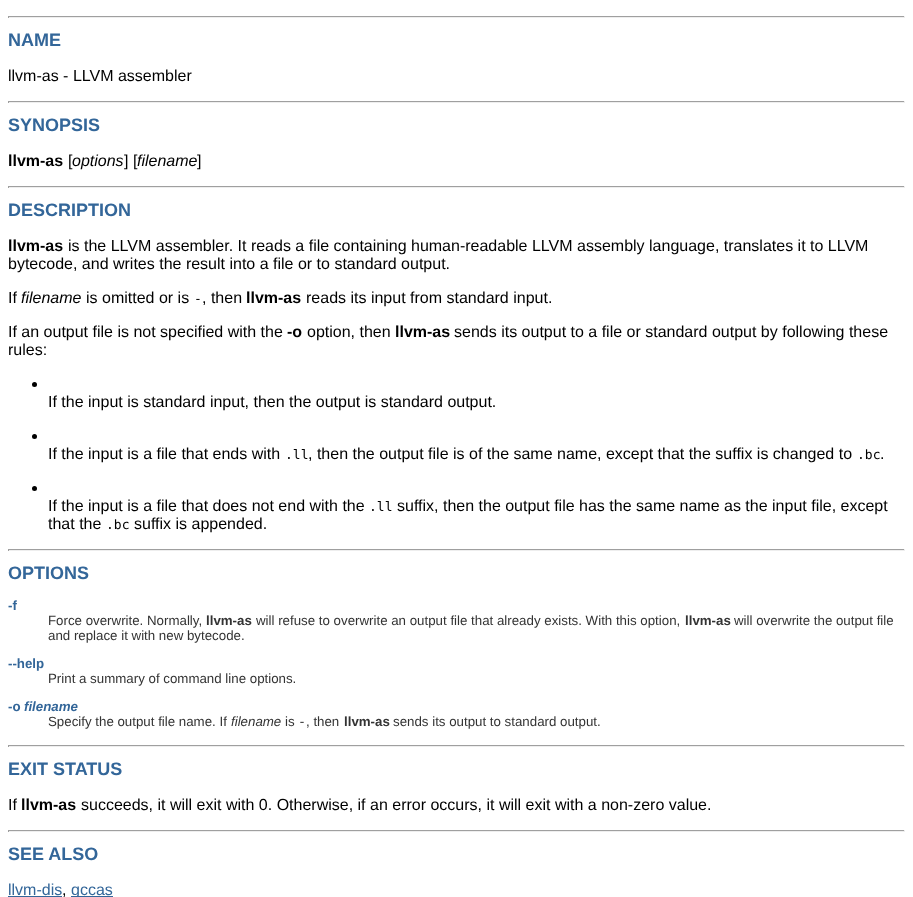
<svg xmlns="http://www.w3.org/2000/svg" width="913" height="897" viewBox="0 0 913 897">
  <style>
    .t1 { font: bold 18px Liberation Sans; fill: #369; }
    .t2 { font: 16px Liberation Sans; fill: #000; }
    .t3 { font: bold 16px Liberation Sans; fill: #000; }
    .t4 { font: italic 16px Liberation Sans; fill: #000; }
    .t5 { font: 13px DejaVu Sans Mono; fill: #000; }
    .t6 { font: bold 13.3px Liberation Sans; fill: #369; }
    .t7 { font: 13.3px Liberation Sans; fill: #333; }
    .t8 { font: bold 13.3px Liberation Sans; fill: #333; }
    .t9 { font: italic bold 13.3px Liberation Sans; fill: #369; }
    .t10 { font: italic 13.3px Liberation Sans; fill: #333; }
    .t11 { font: 13.3px DejaVu Sans Mono; fill: #333; }
    .t12 { font: 16px Liberation Sans; fill: #369; }
  </style>
  <rect width="100%" height="100%" fill="#fff"/>
  <rect x="8" y="16" width="897" height="1" fill="#9f9f9f"/>
  <rect x="904" y="16" width="1" height="2" fill="#eee"/>
  <rect x="8" y="17" width="897" height="1" fill="#eee"/>
  <rect x="8" y="16" width="1" height="2" fill="#9f9f9f"/>
  <text x="8" y="46" class="t1">NAME</text>
  <text x="8" y="81" class="t2">llvm-as - LLVM assembler</text>
  <rect x="8" y="101" width="897" height="1" fill="#9f9f9f"/>
  <rect x="904" y="101" width="1" height="2" fill="#eee"/>
  <rect x="8" y="102" width="897" height="1" fill="#eee"/>
  <rect x="8" y="101" width="1" height="2" fill="#9f9f9f"/>
  <text x="8" y="131" class="t1">SYNOPSIS</text>
  <text x="8" y="166" class="t3">llvm-as</text>
  <text x="68" y="166" class="t2">[</text>
  <text x="72" y="166" class="t4">options</text>
  <text x="124" y="166" class="t2">] [</text>
  <text x="137" y="166" class="t4">filename</text>
  <text x="197" y="166" class="t2">]</text>
  <rect x="8" y="186" width="897" height="1" fill="#9f9f9f"/>
  <rect x="904" y="186" width="1" height="2" fill="#eee"/>
  <rect x="8" y="187" width="897" height="1" fill="#eee"/>
  <rect x="8" y="186" width="1" height="2" fill="#9f9f9f"/>
  <text x="8" y="216" class="t1">DESCRIPTION</text>
  <text x="8" y="251" class="t3">llvm-as</text>
  <text x="68" y="251" class="t2">is the LLVM assembler. It reads a file containing human-readable LLVM assembly language, translates it to LLVM</text>
  <text x="8" y="269" class="t2">bytecode, and writes the result into a file or to standard output.</text>
  <text x="8" y="303" class="t2">If</text>
  <text x="21" y="303" class="t4">filename</text>
  <text x="86" y="303" class="t2">is omitted or is</text>
  <text x="194" y="303" class="t5">-</text>
  <text x="202" y="303" class="t2">, then</text>
  <text x="246" y="303" class="t3">llvm-as</text>
  <text x="306" y="303" class="t2">reads its input from standard input.</text>
  <text x="8" y="337" class="t2">If an output file is not specified with the</text>
  <text x="287" y="337" class="t3">-o</text>
  <text x="307" y="337" class="t2">option, then</text>
  <text x="395" y="337" class="t3">llvm-as</text>
  <text x="454" y="337" class="t2">sends its output to a file or standard output by following these</text>
  <text x="8" y="355" class="t2">rules:</text>
  <circle cx="34.5" cy="384.5" r="2.5" fill="#000"/>
  <text x="48" y="407" class="t2">If the input is standard input, then the output is standard output.</text>
  <circle cx="34.5" cy="436.5" r="2.5" fill="#000"/>
  <text x="48" y="459" class="t2">If the input is a file that ends with</text>
  <text x="285" y="459" class="t5">.ll</text>
  <text x="308" y="459" class="t2">, then the output file is of the same name, except that the suffix is changed to</text>
  <text x="857" y="459" class="t5">.bc</text>
  <text x="880" y="459" class="t2">.</text>
  <circle cx="34.5" cy="488.5" r="2.5" fill="#000"/>
  <text x="48" y="511" class="t2">If the input is a file that does not end with the</text>
  <text x="369" y="511" class="t5">.ll</text>
  <text x="397" y="511" class="t2">suffix, then the output file has the same name as the input file, except</text>
  <text x="48" y="529" class="t2">that the</text>
  <text x="106" y="529" class="t5">.bc</text>
  <text x="134" y="529" class="t2">suffix is appended.</text>
  <rect x="8" y="549" width="897" height="1" fill="#9f9f9f"/>
  <rect x="904" y="549" width="1" height="2" fill="#eee"/>
  <rect x="8" y="550" width="897" height="1" fill="#eee"/>
  <rect x="8" y="549" width="1" height="2" fill="#9f9f9f"/>
  <text x="8" y="579" class="t1">OPTIONS</text>
  <text x="8" y="610" class="t6">-f</text>
  <text x="48" y="625" class="t7">Force overwrite. Normally,</text>
  <text x="206" y="625" class="t8">llvm-as</text>
  <text x="256" y="625" class="t7">will refuse to overwrite an output file that already exists. With this option,</text>
  <text x="685" y="625" class="t8">llvm-as</text>
  <text x="734" y="625" class="t7">will overwrite the output file</text>
  <text x="48" y="640" class="t7">and replace it with new bytecode.</text>
  <text x="8" y="668" class="t6">--help</text>
  <text x="48" y="683" class="t7">Print a summary of command line options.</text>
  <text x="8" y="711" class="t6">-o</text>
  <text x="24" y="711" class="t9">filename</text>
  <text x="48" y="726" class="t7">Specify the output file name. If</text>
  <text x="231" y="726" class="t10">filename</text>
  <text x="285" y="726" class="t7">is</text>
  <text x="298" y="726" class="t11">-</text>
  <text x="306" y="726" class="t7">, then</text>
  <text x="344" y="726" class="t8">llvm-as</text>
  <text x="393" y="726" class="t7">sends its output to standard output.</text>
  <rect x="8" y="745" width="897" height="1" fill="#9f9f9f"/>
  <rect x="904" y="745" width="1" height="2" fill="#eee"/>
  <rect x="8" y="746" width="897" height="1" fill="#eee"/>
  <rect x="8" y="745" width="1" height="2" fill="#9f9f9f"/>
  <text x="8" y="775" class="t1">EXIT STATUS</text>
  <text x="8" y="810" class="t2">If</text>
  <text x="21" y="810" class="t3">llvm-as</text>
  <text x="81" y="810" class="t2">succeeds, it will exit with 0. Otherwise, if an error occurs, it will exit with a non-zero value.</text>
  <rect x="8" y="830" width="897" height="1" fill="#9f9f9f"/>
  <rect x="904" y="830" width="1" height="2" fill="#eee"/>
  <rect x="8" y="831" width="897" height="1" fill="#eee"/>
  <rect x="8" y="830" width="1" height="2" fill="#9f9f9f"/>
  <text x="8" y="860" class="t1">SEE ALSO</text>
  <text x="8" y="895" class="t12">llvm-dis</text>
  <rect x="8" y="896" width="54" height="1" fill="#369"/>
  <text x="62" y="895" class="t2">,</text>
  <rect x="71" y="896" width="42" height="1" fill="#369"/>
  <text x="71" y="895" class="t12">gccas</text>
</svg>
